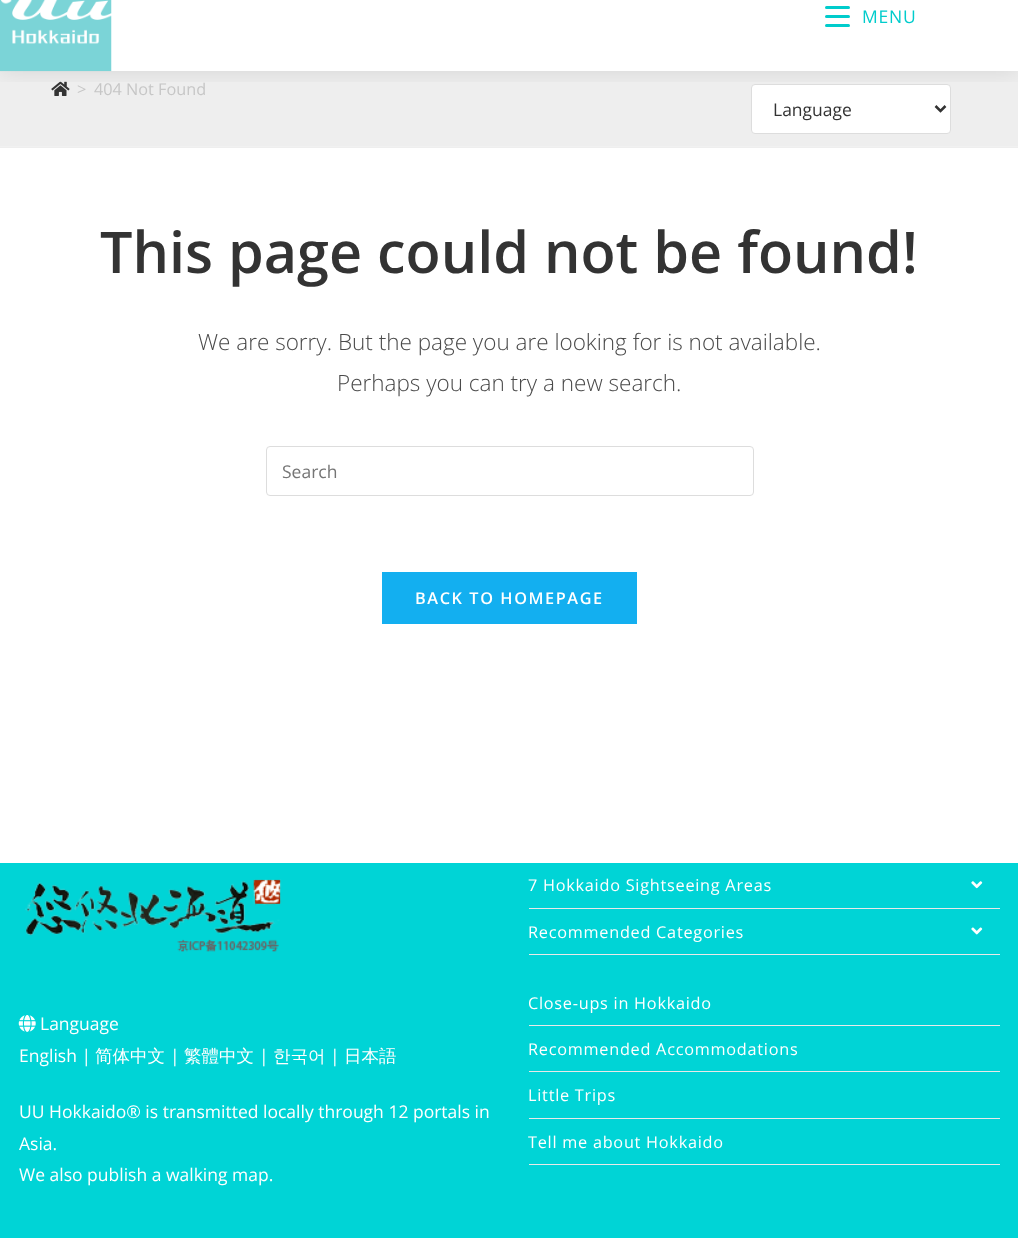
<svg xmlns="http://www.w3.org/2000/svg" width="1018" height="1238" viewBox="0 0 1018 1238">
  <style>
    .t1 { font: 17.5px Open Sans; letter-spacing: 0.75px; fill: #0cc; }
    .t2 { font: 16.25px Open Sans; fill: #c6c6c6; }
    .t3 { font: 17.5px Open Sans; fill: #333; }
    .t4 { font: 600 57.5px Open Sans; fill: #333; }
    .t5 { font: 300 22.5px Open Sans; fill: #4a4a4a; }
    .t6 { font: 17.5px Open Sans; fill: #757575; }
    .t7 { font: 600 16.25px Open Sans; letter-spacing: 1.6px; fill: #fff; }
    .t8 { font: 17.5px Open Sans; fill: #fff; }
    .t9 { font: 500 17.5px WenQuanYi Zen Hei; fill: #fff; }
    .t10 { font: 16.25px Open Sans; letter-spacing: 0.75px; fill: #fff; }
  </style>
  <defs>
    <clipPath id="clip1"><rect x="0" y="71" width="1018" height="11"/></clipPath>
  </defs>
  <rect width="100%" height="100%" fill="#fff"/>
  <rect x="0" y="71" width="1018" height="77" fill="#eee"/>
  <image x="51" y="81" width="19" height="15" href="images/2.png"/>
  <rect x="751.5" y="84.5" width="199" height="49" rx="3.5" fill="#fff" stroke="#ddd"/>
  <path d="M935.5 106L940.5 111L945.5 106" fill="none" stroke="#333" stroke-width="2.5"/>
  <g clip-path="url(#clip1)">
    <rect x="0" y="-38" width="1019" height="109" fill="#0000001a" filter="blur(12.5px)"/>
  </g>
  <image x="0" y="0" width="112" height="72" href="images/1.png"/>
  <rect x="825" y="15" width="25" height="3" rx="1.5" fill="#0cc"/>
  <rect x="825" y="6" width="25" height="3" rx="1.5" fill="#0cc"/>
  <rect x="825" y="24" width="25" height="3" rx="1.5" fill="#0cc"/>
  <text x="862" y="23" class="t1">MENU</text>
  <rect x="0" y="146" width="1018" height="1" fill="#f1f1f1"/>
  <text x="77" y="95" class="t2">&gt;</text>
  <text x="94" y="95" class="t2">404 Not Found</text>
  <text x="773" y="116" class="t3">Language</text>
  <text x="100" y="273" class="t4">This page could not be found!</text>
  <text x="198" y="350" class="t5">We are sorry. But the page you are looking for is not available.</text>
  <text x="337" y="391" class="t5">Perhaps you can try a new search.</text>
  <rect x="266.5" y="446.5" width="487" height="49" rx="3.5" fill="none" stroke="#ddd"/>
  <text x="282" y="478" class="t6">Search</text>
  <rect x="382" y="572" width="255" height="52" fill="#13aff0"/>
  <text x="415" y="604" class="t7">BACK TO HOMEPAGE</text>
  <rect x="0" y="863" width="1018" height="375" fill="#00d4d6"/>
  <image x="25" y="879" width="257" height="73" href="images/3.png"/>
  <image x="18" y="1015" width="18" height="17" href="images/4.png"/>
  <text x="40" y="1030" class="t8">Language</text>
  <text x="19" y="1062" class="t8">English |</text>
  <text x="95" y="1062" class="t9">简体中文</text>
  <text x="170" y="1062" class="t8">|</text>
  <text x="184" y="1062" class="t9">繁體中文</text>
  <text x="259" y="1062" class="t8">|</text>
  <text x="273" y="1062" class="t9">한국어</text>
  <text x="330" y="1062" class="t8">|</text>
  <text x="344" y="1062" class="t9">日本語</text>
  <text x="19" y="1118" class="t8">UU Hokkaido® is transmitted locally through 12 portals in</text>
  <text x="19" y="1150" class="t8">Asia.</text>
  <text x="19" y="1181" class="t8">We also publish a walking map.</text>
  <rect x="529" y="908" width="471" height="1" fill="#e9e9e9"/>
  <text x="528" y="891" class="t10">7 Hokkaido Sightseeing Areas</text>
  <image x="971" y="881" width="12" height="8" href="images/5.png"/>
  <rect x="529" y="954" width="471" height="1" fill="#e9e9e9"/>
  <text x="528" y="938" class="t10">Recommended Categories</text>
  <image x="971" y="927" width="12" height="8" href="images/6.png"/>
  <rect x="529" y="1025" width="471" height="1" fill="#e9e9e9"/>
  <text x="528" y="1009" class="t10">Close-ups in Hokkaido</text>
  <rect x="529" y="1071" width="471" height="1" fill="#e9e9e9"/>
  <text x="528" y="1055" class="t10">Recommended Accommodations</text>
  <rect x="529" y="1118" width="471" height="1" fill="#e9e9e9"/>
  <text x="528" y="1101" class="t10">Little Trips</text>
  <rect x="529" y="1164" width="471" height="1" fill="#e9e9e9"/>
  <text x="528" y="1148" class="t10">Tell me about Hokkaido</text>
</svg>
